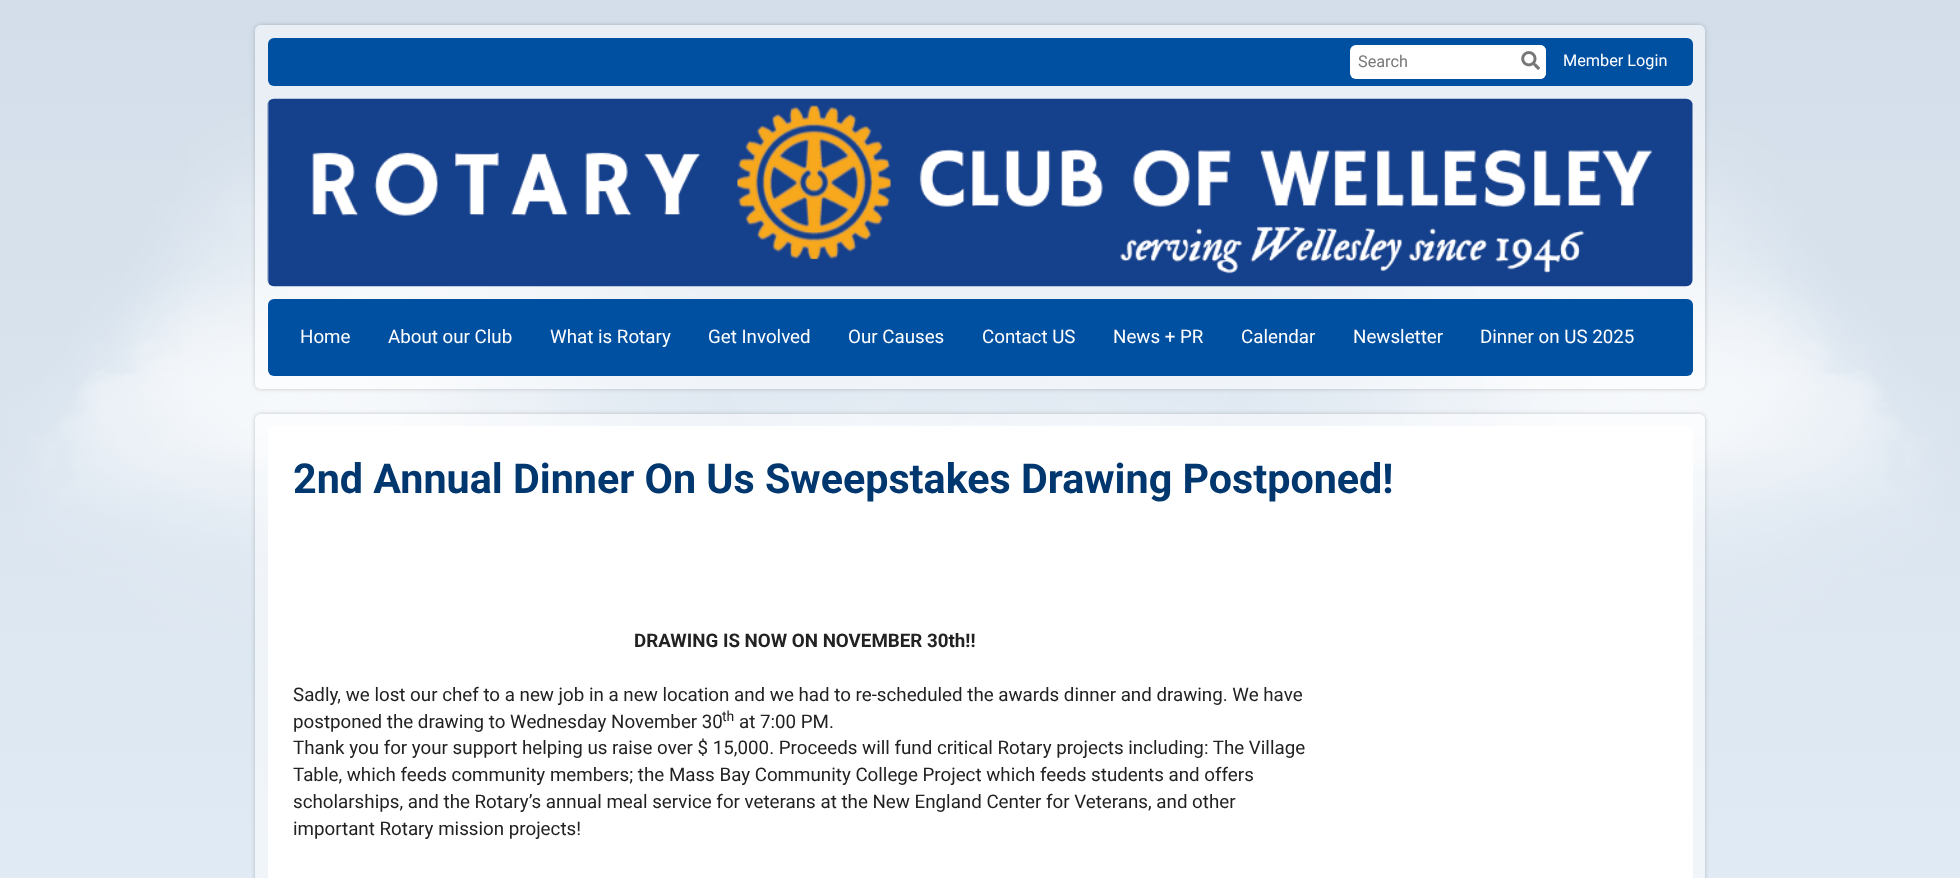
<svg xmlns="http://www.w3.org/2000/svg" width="1960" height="878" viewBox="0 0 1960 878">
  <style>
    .t1 { font: 16.25px Roboto; fill: #777; }
    .t2 { font: 16.25px Roboto; fill: #fff; }
    .t3 { font: 18.75px Roboto; fill: #fff; }
    .t4 { font: bold 41.25px Roboto; fill: #00376f; }
    .t5 { font: bold 18.75px Roboto; fill: #222; }
    .t6 { font: 18.75px Roboto; fill: #222; }
    .t7 { font: 14px Roboto; fill: #222; }
  </style>
  <defs>
    <clipPath id="clip1"><path d="M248 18H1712V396H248ZM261 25H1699C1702.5 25 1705 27.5 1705 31V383C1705 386.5 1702.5 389 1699 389H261C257.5 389 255 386.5 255 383V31C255 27.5 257.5 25 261 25Z" clip-rule="evenodd"/></clipPath>
    <clipPath id="clip2"><path d="M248 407H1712V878H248ZM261 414H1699C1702.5 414 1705 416.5 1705 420V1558C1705 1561.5 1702.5 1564 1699 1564H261C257.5 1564 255 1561.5 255 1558V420C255 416.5 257.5 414 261 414Z" clip-rule="evenodd"/></clipPath>
  </defs>
  <rect width="100%" height="100%" fill="#fff"/>
  <image x="0" y="0" width="1960" height="878" href="images/1.png"/>
  <g clip-path="url(#clip1)">
    <rect x="255" y="25" width="1450" height="364" rx="6" fill="#00000033" filter="blur(2px)"/>
  </g>
  <rect x="255" y="25" width="1450" height="364" rx="6" fill="#ffffff80"/>
  <rect x="268" y="38" width="1425" height="48" rx="6" fill="#0050a2"/>
  <rect x="1350" y="45" width="196" height="34" rx="6" fill="#fff"/>
  <text x="1358" y="67" class="t1">Search</text>
  <rect x="1515" y="45" width="31" height="34" rx="6" fill="#fff"/>
  <image x="1521" y="51" width="19" height="19" href="images/2.png"/>
  <text x="1563" y="66" class="t2">Member Login</text>
  <image x="267" y="98" width="1426" height="189" href="images/3.png"/>
  <rect x="268" y="299" width="1425" height="77" rx="6" fill="#0050a2"/>
  <text x="300" y="343" class="t3">Home</text>
  <text x="388" y="343" class="t3">About our Club</text>
  <text x="550" y="343" class="t3">What is Rotary</text>
  <text x="708" y="343" class="t3">Get Involved</text>
  <text x="848" y="343" class="t3">Our Causes</text>
  <text x="982" y="343" class="t3">Contact US</text>
  <text x="1113" y="343" class="t3">News + PR</text>
  <text x="1241" y="343" class="t3">Calendar</text>
  <text x="1353" y="343" class="t3">Newsletter</text>
  <text x="1480" y="343" class="t3">Dinner on US 2025</text>
  <g clip-path="url(#clip2)">
    <rect x="255" y="414" width="1450" height="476" rx="6" fill="#00000033" filter="blur(2px)"/>
  </g>
  <rect x="255" y="414" width="1450" height="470" rx="6" fill="#ffffff80"/>
  <rect x="268" y="426" width="1425" height="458" rx="6" fill="#fff"/>
  <text x="293" y="493" class="t4">2nd Annual Dinner On Us Sweepstakes Drawing Postponed!</text>
  <text x="634" y="647" class="t5">DRAWING IS NOW ON NOVEMBER 30th!!</text>
  <text x="293" y="701" class="t6">Sadly, we lost our chef to a new job in a new location and we had to re-scheduled the awards dinner and drawing. We have</text>
  <text x="293" y="728" class="t6">postponed the drawing to Wednesday November 30</text>
  <text x="722" y="721" class="t7">th</text>
  <text x="739" y="728" class="t6">at 7:00 PM.</text>
  <text x="293" y="754" class="t6">Thank you for your support helping us raise over $ 15,000. Proceeds will fund critical Rotary projects including: The Village</text>
  <text x="293" y="781" class="t6">Table, which feeds community members; the Mass Bay Community College Project which feeds students and offers</text>
  <text x="293" y="808" class="t6">scholarships, and the Rotary’s annual meal service for veterans at the New England Center for Veterans, and other</text>
  <text x="293" y="835" class="t6">important Rotary mission projects!</text>
</svg>
